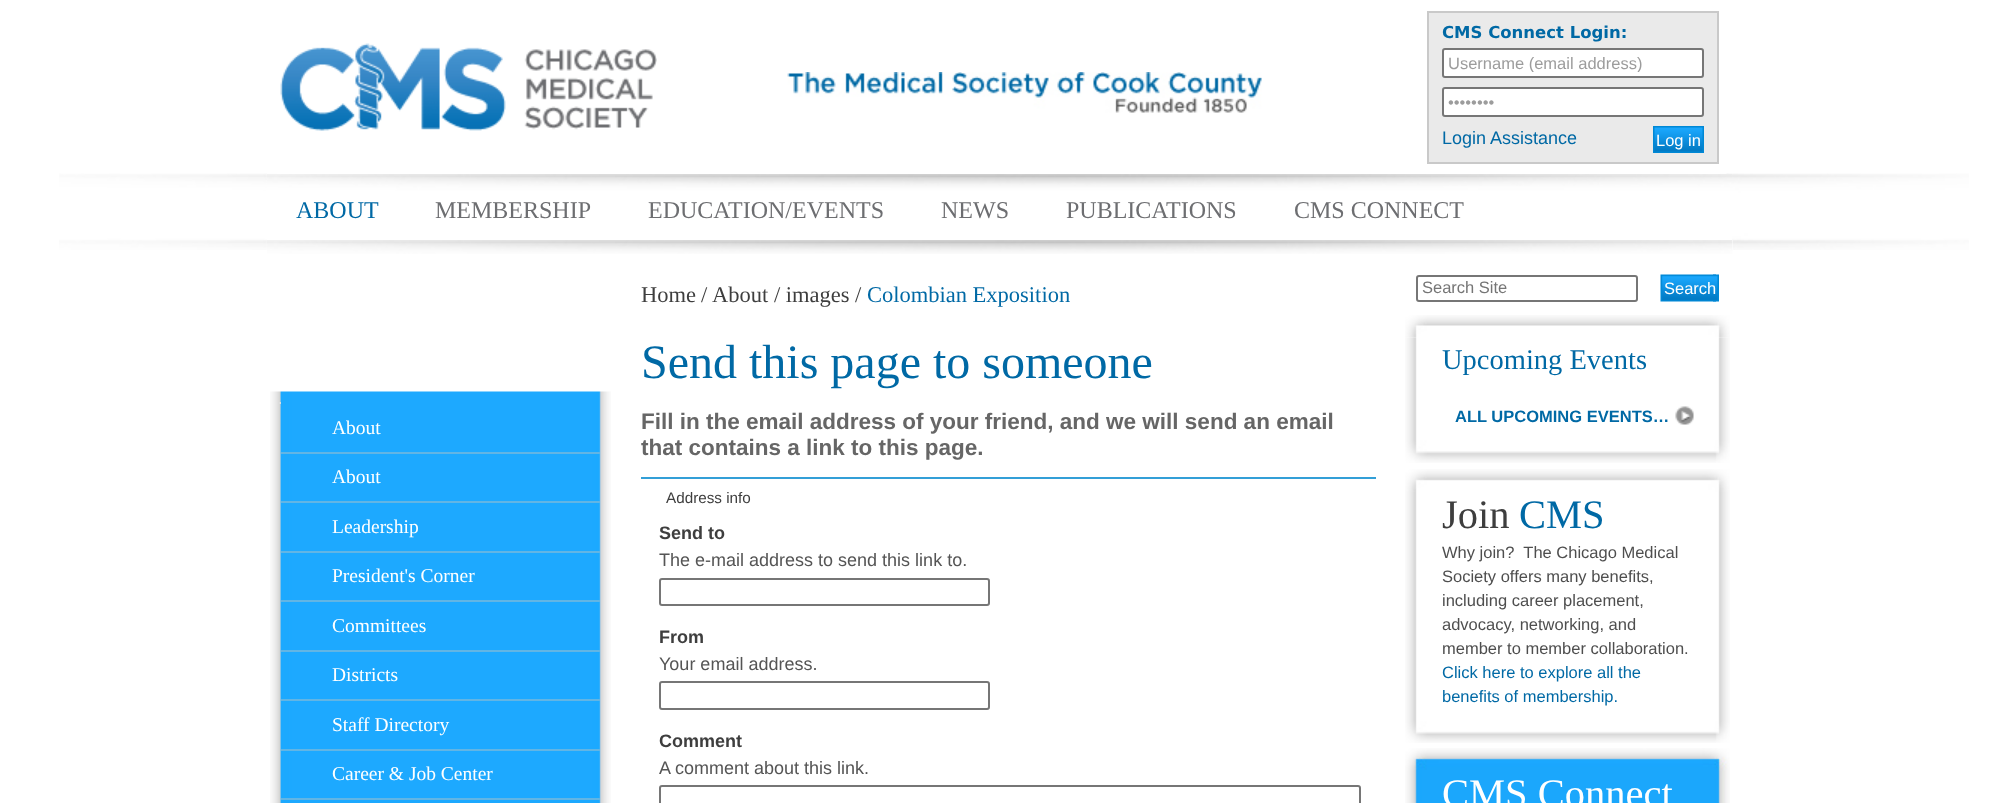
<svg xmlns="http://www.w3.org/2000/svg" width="1999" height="803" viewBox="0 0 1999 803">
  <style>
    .t1 { font: bold 16.5px DejaVu Sans; fill: #0069a5; }
    .t2 { font: 16.5px Liberation Sans; fill: #9c9c9c; }
    .t3 { font: 18px Liberation Sans; fill: #0069a5; }
    .t4 { font: 16.5px Liberation Sans; fill: #fff; }
    .t5 { font: 24px Liberation Serif; fill: #0069a5; }
    .t6 { font: 24px Liberation Serif; fill: #6d6e71; }
    .t7 { font: 19.5px Liberation Serif; fill: #fff; }
    .t8 { font: 22.5px Liberation Serif; fill: #3e3e3e; }
    .t9 { font: 22.5px Liberation Serif; fill: #0069a5; }
    .t10 { font: 48px Liberation Serif; fill: #0069a5; }
    .t11 { font: bold 22.5px Liberation Sans; fill: #666; }
    .t12 { font: 15.25px Liberation Sans; fill: #3e3e3e; }
    .t13 { font: bold 18px Liberation Sans; fill: #3e3e3e; }
    .t14 { font: 18px Liberation Sans; fill: #555; }
    .t15 { font: 16.5px Liberation Sans; fill: #757575; }
    .t16 { font: 28.5px Liberation Serif; fill: #0069a5; }
    .t17 { font: bold 16.5px Liberation Sans; fill: #0069a5; }
    .t18 { font: 40.5px Liberation Serif; fill: #3e3e3e; }
    .t19 { font: 40.5px Liberation Serif; fill: #0069a5; }
    .t20 { font: 16.5px Liberation Sans; fill: #4e4e4e; }
    .t21 { font: 16.5px Liberation Sans; fill: #0069a5; }
    .t22 { font: 40.5px Liberation Serif; fill: #fff; }
  </style>
  <defs>
    <clipPath id="clip1"><rect x="1448" y="54" width="253" height="18"/></clipPath>
  </defs>
  <rect width="100%" height="100%" fill="#fff"/>
  <image x="59" y="173" width="1910" height="77" href="images/1.png"/>
  <image x="280" y="43" width="377" height="88" href="images/2.png"/>
  <image x="787" y="72" width="475" height="41" href="images/3.png"/>
  <rect x="1428" y="12" width="290" height="151" fill="#eaeaea" stroke="#c9c9c9" stroke-width="2"/>
  <text x="1442" y="38" class="t1">CMS Connect Login:</text>
  <rect x="1443" y="49" width="260" height="28" rx="2" fill="#fff" stroke="#767676" stroke-width="2"/>
  <g clip-path="url(#clip1)">
    <text x="1448" y="69" class="t2">Username (email address)</text>
  </g>
  <rect x="1443" y="88" width="260" height="28" rx="2" fill="#fff" stroke="#767676" stroke-width="2"/>
  <text x="1448" y="108" class="t2">••••••••</text>
  <text x="1442" y="144" class="t3">Login Assistance</text>
  <image x="1698" y="126" width="6" height="27" href="images/4.png"/>
  <image x="1653" y="126" width="45" height="27" href="images/5.png"/>
  <text x="1656" y="146" class="t4">Log in</text>
  <image x="267" y="174" width="1465" height="66" href="images/6.png"/>
  <text x="296" y="218" class="t5">ABOUT</text>
  <text x="435" y="218" class="t6">MEMBERSHIP</text>
  <text x="648" y="218" class="t6">EDUCATION/EVENTS</text>
  <text x="941" y="218" class="t6">NEWS</text>
  <text x="1066" y="218" class="t6">PUBLICATIONS</text>
  <text x="1294" y="218" class="t6">CMS CONNECT</text>
  <rect x="267" y="240" width="1466" height="10" fill="#fff"/>
  <image x="267" y="240" width="1466" height="14" href="images/7.png"/>
  <image x="270" y="391" width="341" height="412" href="images/8.png"/>
  <rect x="279" y="402" width="2" height="2" fill="#ddd"/>
  <rect x="281" y="452" width="319" height="2" fill="#62b5e4"/>
  <text x="332" y="434" class="t7">About</text>
  <rect x="281" y="501" width="319" height="2" fill="#62b5e4"/>
  <text x="332" y="483" class="t7">About</text>
  <rect x="281" y="551" width="319" height="2" fill="#62b5e4"/>
  <text x="332" y="533" class="t7">Leadership</text>
  <rect x="281" y="600" width="319" height="2" fill="#62b5e4"/>
  <text x="332" y="582" class="t7">President's Corner</text>
  <rect x="281" y="650" width="319" height="2" fill="#62b5e4"/>
  <text x="332" y="632" class="t7">Committees</text>
  <rect x="281" y="699" width="319" height="2" fill="#62b5e4"/>
  <text x="332" y="681" class="t7">Districts</text>
  <rect x="281" y="749" width="319" height="2" fill="#62b5e4"/>
  <text x="332" y="731" class="t7">Staff Directory</text>
  <rect x="281" y="798" width="319" height="2" fill="#62b5e4"/>
  <text x="332" y="780" class="t7">Career &amp; Job Center</text>
  <text x="641" y="302" class="t8">Home</text>
  <text x="701" y="302" class="t8">/</text>
  <text x="712" y="302" class="t8">About / images /</text>
  <text x="867" y="302" class="t9">Colombian Exposition</text>
  <text x="641" y="378" class="t10">Send this page to someone</text>
  <text x="641" y="429" class="t11">Fill in the email address of your friend, and we will send an email</text>
  <text x="641" y="455" class="t11">that contains a link to this page.</text>
  <rect x="641" y="477" width="735" height="2" fill="#329fd7"/>
  <text x="666" y="503" class="t12">Address info</text>
  <text x="659" y="539" class="t13">Send to</text>
  <text x="659" y="566" class="t14">The e-mail address to send this link to.</text>
  <rect x="660" y="579" width="329" height="26" rx="2" fill="none" stroke="#767676" stroke-width="2"/>
  <text x="659" y="643" class="t13">From</text>
  <text x="659" y="670" class="t14">Your email address.</text>
  <rect x="660" y="682" width="329" height="27" rx="2" fill="none" stroke="#767676" stroke-width="2"/>
  <text x="659" y="747" class="t13">Comment</text>
  <text x="659" y="774" class="t14">A comment about this link.</text>
  <rect x="660" y="786" width="700" height="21" rx="2" fill="none" stroke="#767676" stroke-width="2"/>
  <rect x="1417" y="276" width="220" height="25" rx="2" fill="none" stroke="#767676" stroke-width="2"/>
  <text x="1422" y="293" class="t15">Search Site</text>
  <image x="1713" y="274" width="6" height="28" href="images/9.png"/>
  <image x="1660" y="274" width="56" height="28" href="images/10.png"/>
  <text x="1664" y="294" class="t4">Search</text>
  <image x="1405" y="315" width="325" height="23" href="images/11.png"/>
  <image x="1405" y="337" width="325" height="126" href="images/12.png"/>
  <text x="1442" y="369" class="t16">Upcoming Events</text>
  <image x="1675" y="406" width="19" height="19" href="images/13.png"/>
  <text x="1455" y="422" class="t17">ALL UPCOMING EVENTS…</text>
  <image x="1405" y="469" width="325" height="23" href="images/14.png"/>
  <image x="1405" y="492" width="325" height="251" href="images/15.png"/>
  <text x="1442" y="528" class="t18">Join</text>
  <text x="1519" y="528" class="t19">CMS</text>
  <text x="1442" y="558" class="t20" xml:space="preserve">Why join?  The Chicago Medical</text>
  <text x="1442" y="582" class="t20">Society offers many benefits,</text>
  <text x="1442" y="606" class="t20">including career placement,</text>
  <text x="1442" y="630" class="t20">advocacy, networking, and</text>
  <text x="1442" y="654" class="t20">member to member collaboration.</text>
  <text x="1442" y="678" class="t21">Click here to explore all the</text>
  <text x="1442" y="702" class="t21">benefits of membership.</text>
  <image x="1405" y="748" width="325" height="23" href="images/16.png"/>
  <image x="1405" y="771" width="325" height="32" href="images/17.png"/>
  <text x="1442" y="807" class="t22">CMS Connect</text>
</svg>
